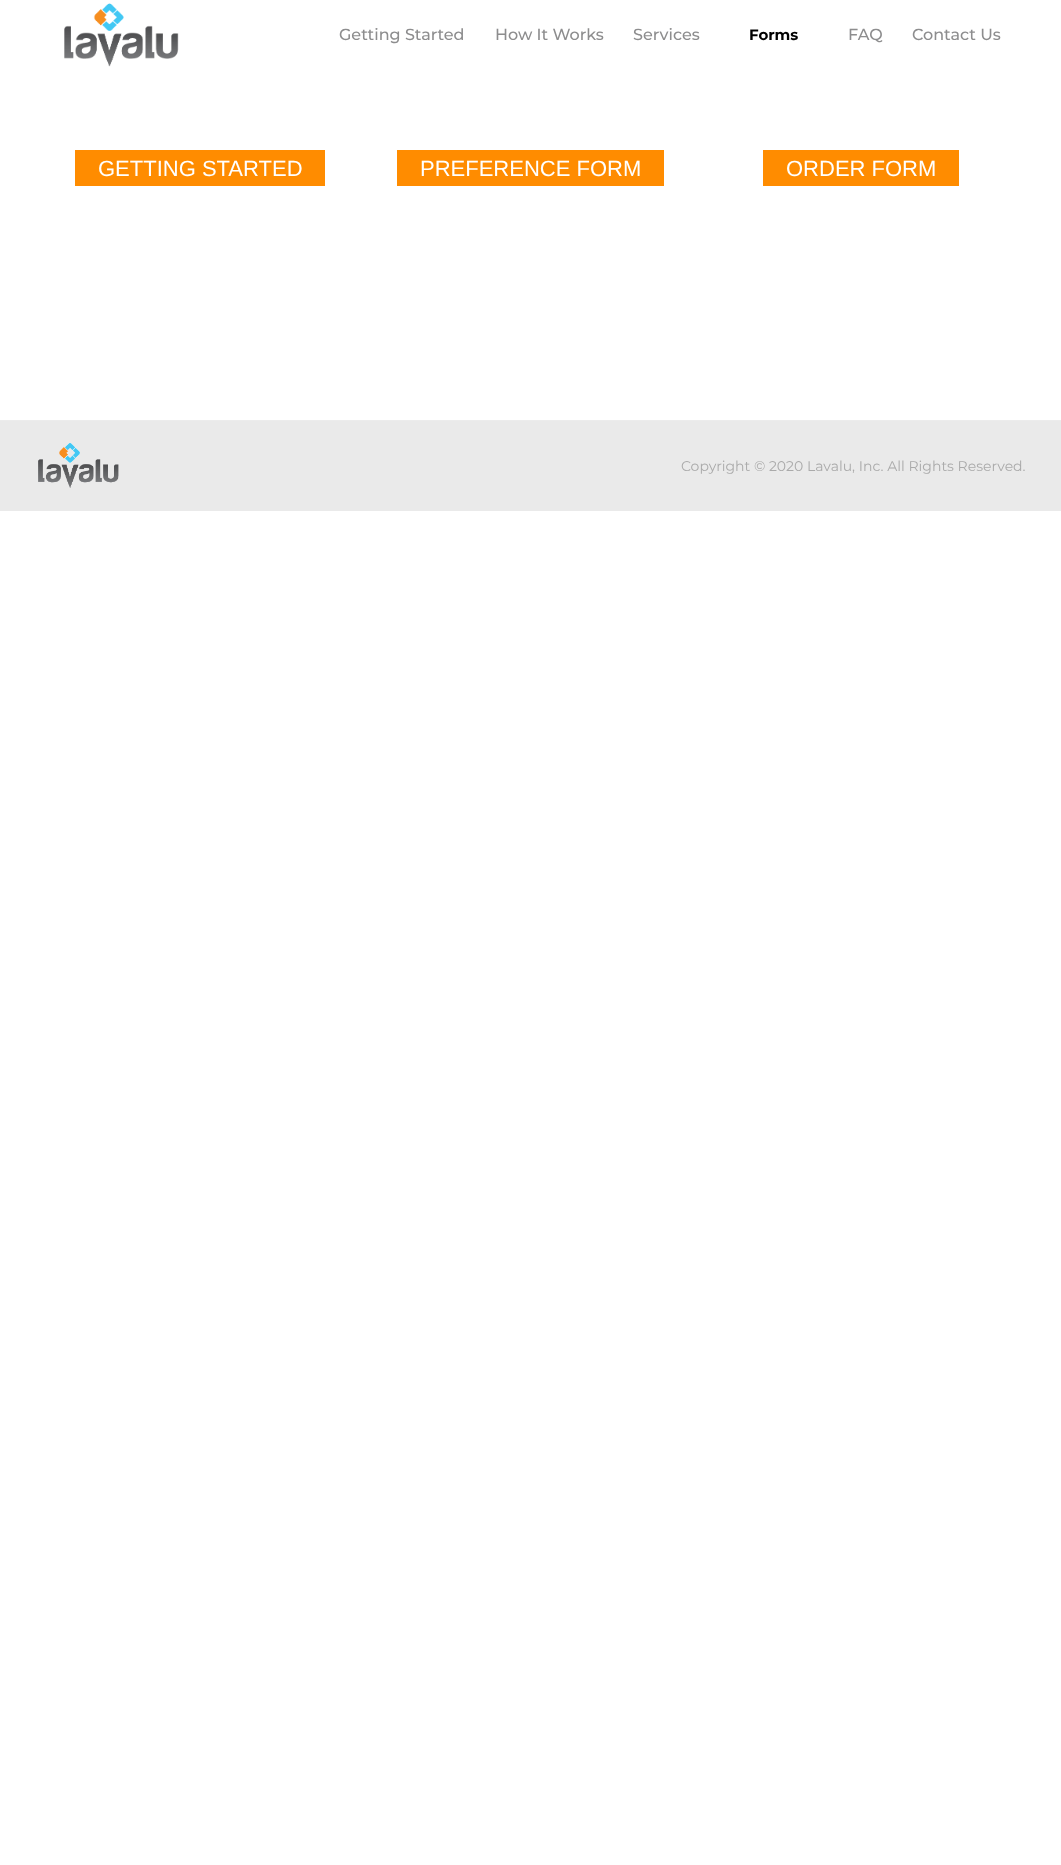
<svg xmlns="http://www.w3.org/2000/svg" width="1061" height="1865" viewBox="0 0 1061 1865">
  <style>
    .t1 { font: 500 16px Montserrat; fill: #8d8d8e; }
    .t2 { font: bold 15px Montserrat; fill: #000; }
    .t3 { font: 22px Liberation Sans; fill: #fff; }
    .t4 { font: 14px Montserrat; fill: #aaa; }
  </style>
  <rect width="100%" height="100%" fill="#fff"/>
  <image x="64" y="3" width="115" height="64" href="images/1.png"/>
  <text x="339" y="40" class="t1">Getting Started</text>
  <text x="495" y="40" class="t1">How It Works</text>
  <text x="633" y="40" class="t1">Services</text>
  <text x="749" y="40" class="t2">Forms</text>
  <text x="848" y="40" class="t1">FAQ</text>
  <text x="912" y="40" class="t1">Contact Us</text>
  <rect x="75" y="150" width="250" height="36" fill="#ff8c00"/>
  <text x="98" y="176" class="t3">GETTING STARTED</text>
  <rect x="397" y="150" width="267" height="36" fill="#ff8c00"/>
  <text x="420" y="176" class="t3">PREFERENCE FORM</text>
  <rect x="763" y="150" width="196" height="36" fill="#ff8c00"/>
  <text x="786" y="176" class="t3">ORDER FORM</text>
  <rect x="0" y="421" width="1061" height="90" fill="#eaeaea"/>
  <rect x="0" y="420" width="1061" height="1" fill="#ececec"/>
  <image x="38" y="443" width="81" height="45" href="images/2.png"/>
  <text x="681" y="471" class="t4">Copyright © 2020 Lavalu, Inc. All Rights Reserved.</text>
</svg>
